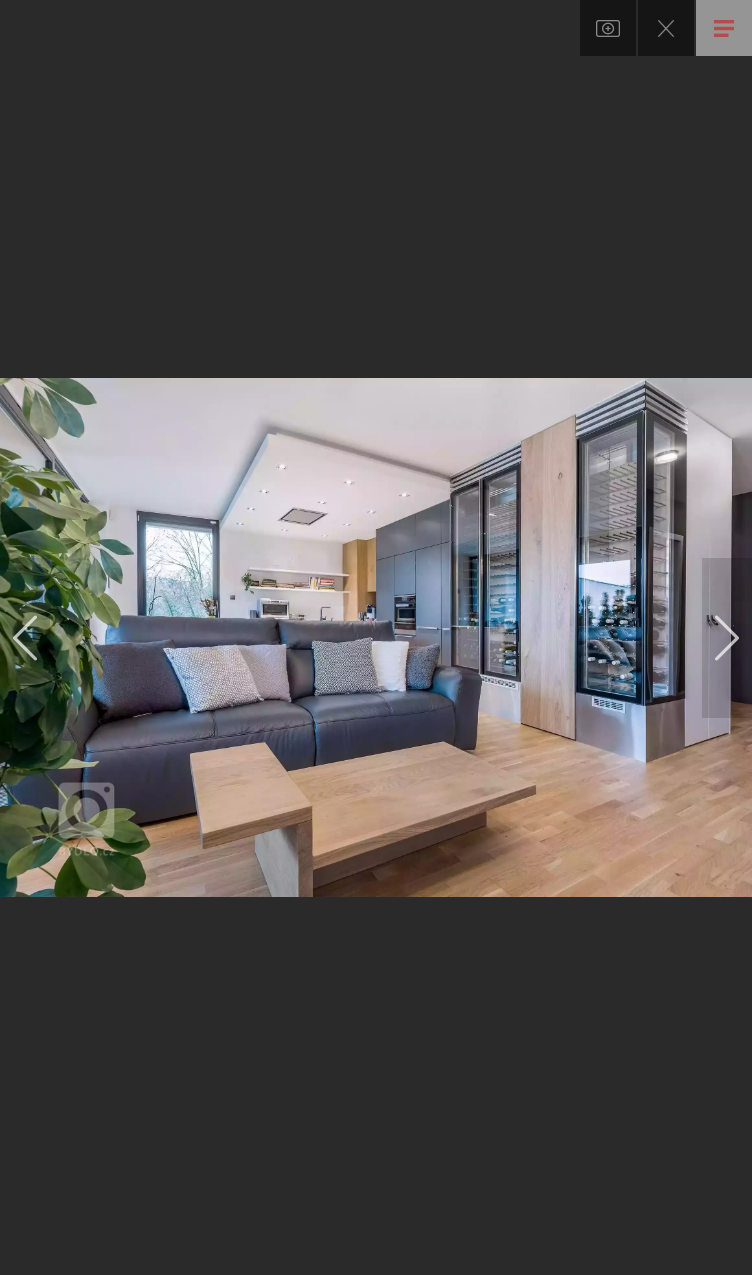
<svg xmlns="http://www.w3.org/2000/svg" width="752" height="1275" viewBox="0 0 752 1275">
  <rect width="100%" height="100%" fill="#2a2a2a"/>
  <rect x="580" y="0" width="56" height="56" fill="#151515"/>
  <image x="596" y="20" width="24" height="17" href="images/1.png"/>
  <rect x="638" y="0" width="56" height="56" fill="#151515"/>
  <image x="658" y="20" width="16" height="17" href="images/2.png"/>
  <rect x="696" y="0" width="56" height="56" fill="#959595"/>
  <image x="714" y="20" width="20" height="17" href="images/3.png"/>
  <image x="0" y="378" width="752" height="519" href="images/4.png"/>
  <rect x="0" y="558" width="50" height="160" fill="#00000024"/>
  <image x="13" y="615" width="24" height="46" href="images/5.png"/>
  <rect x="702" y="558" width="50" height="160" fill="#00000024"/>
  <image x="715" y="615" width="24" height="46" href="images/6.png"/>
</svg>
